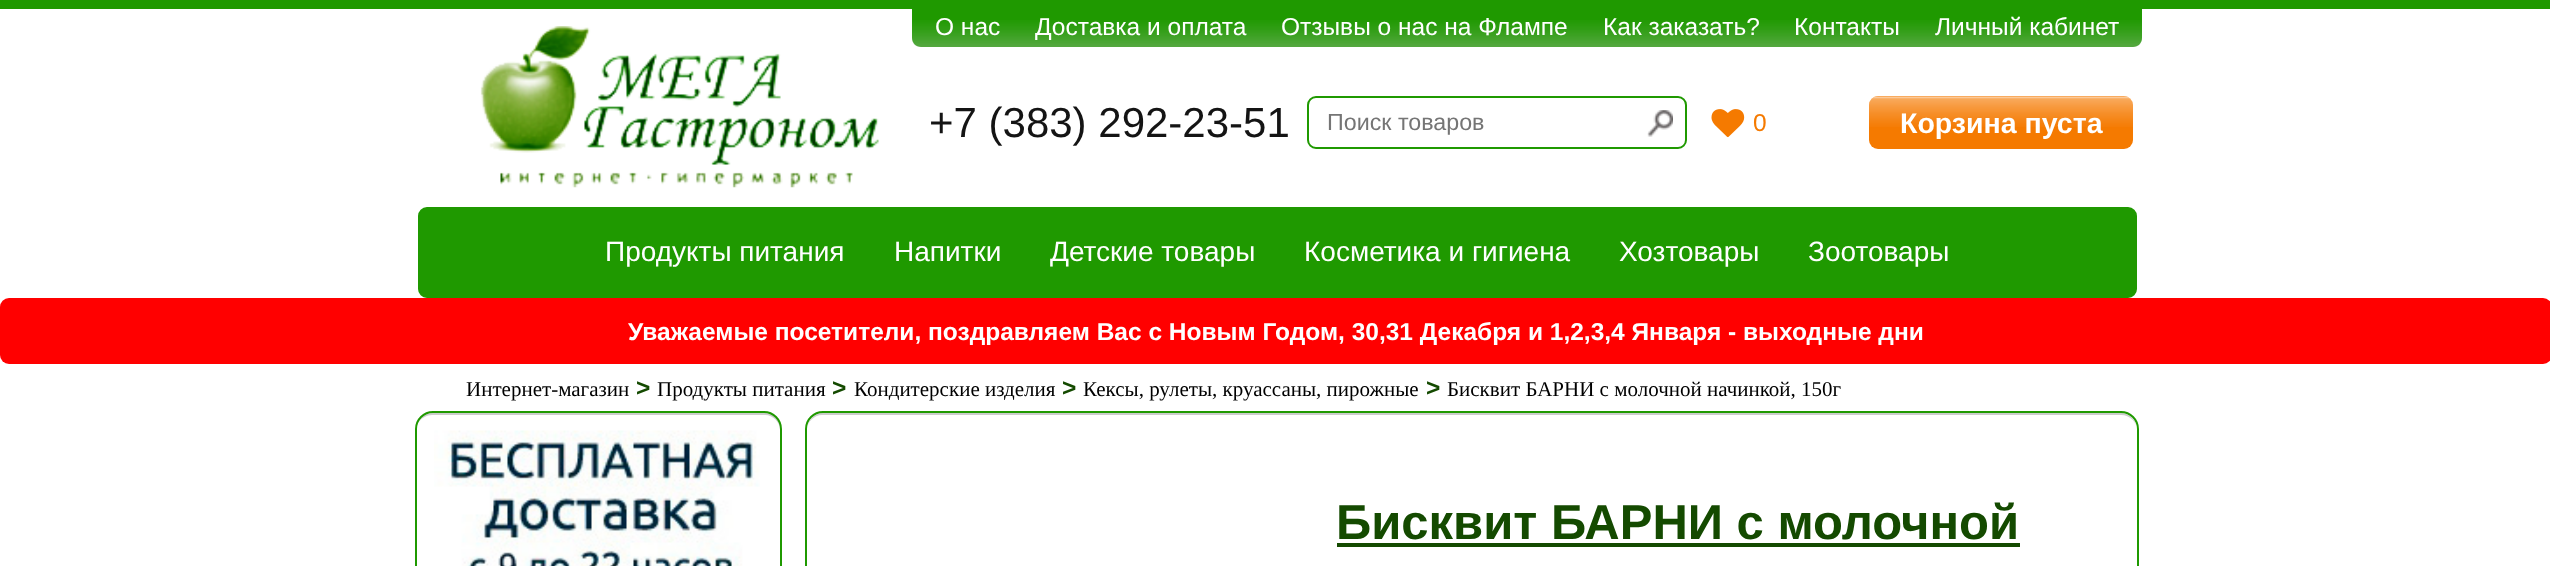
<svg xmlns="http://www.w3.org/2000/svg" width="2550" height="566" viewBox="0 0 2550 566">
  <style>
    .t1 { font: 24.5px Liberation Sans; fill: #fff; }
    .t2 { font: 42px Liberation Sans; fill: #141414; }
    .t3 { font: 23.25px Liberation Sans; fill: #757575; }
    .t4 { font: 24.5px Liberation Sans; fill: #f57a00; }
    .t5 { font: bold 28.5px Liberation Sans; fill: #fff; }
    .t6 { font: 28px Liberation Sans; fill: #fff; }
    .t7 { font: bold 24.5px Liberation Sans; fill: #fff; }
    .t8 { font: 21px Liberation Serif; fill: #000; }
    .t9 { font: bold 24.5px Liberation Sans; fill: #144a00; }
    .t10 { font: bold 49px Liberation Sans; fill: #144a00; }
  </style>
  <rect width="100%" height="100%" fill="#fff"/>
  <rect x="0" y="0" width="2550" height="9" fill="#1f9900"/>
  <image x="480" y="26" width="399" height="162" href="images/1.png"/>
  <path d="M912 9H2142V38C2142 43 2138 47 2133 47H921C916 47 912 43 912 38Z" fill="#1f9900"/>
  <image x="912" y="20" width="1230" height="27" href="images/2.png"/>
  <text x="935" y="35" class="t1">О нас</text>
  <text x="1035" y="35" class="t1">Доставка и оплата</text>
  <text x="1281" y="35" class="t1">Отзывы о нас на Флампе</text>
  <text x="1603" y="35" class="t1">Как заказать?</text>
  <text x="1794" y="35" class="t1">Контакты</text>
  <text x="1935" y="35" class="t1">Личный кабинет</text>
  <text x="929" y="137" class="t2">+7 (383) 292-23-51</text>
  <rect x="1308" y="97" width="378" height="51" rx="8" fill="none" stroke="#1f9900" stroke-width="2"/>
  <text x="1327" y="130" class="t3">Поиск товаров</text>
  <image x="1647" y="110" width="26" height="27" href="images/3.png"/>
  <image x="1711" y="109" width="34" height="29" href="images/4.png"/>
  <text x="1753" y="131" class="t4">0</text>
  <rect x="1869" y="96" width="264" height="53" rx="9" fill="#f57a00"/>
  <image x="1869" y="96" width="264" height="31" href="images/5.png"/>
  <text x="1900" y="133" class="t5">Корзина пуста</text>
  <rect x="419" y="208" width="1717" height="89" rx="8" fill="#1f9900" stroke="#1f9900" stroke-width="2"/>
  <text x="605" y="261" class="t6">Продукты питания</text>
  <text x="894" y="261" class="t6">Напитки</text>
  <text x="1050" y="261" class="t6">Детские товары</text>
  <text x="1304" y="261" class="t6">Косметика и гигиена</text>
  <text x="1619" y="261" class="t6">Хозтовары</text>
  <text x="1808" y="261" class="t6">Зоотовары</text>
  <rect x="0" y="298" width="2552" height="66" rx="9" fill="#f00"/>
  <text x="628" y="340" class="t7">Уважаемые посетители, поздравляем Вас с Новым Годом, 30,31 Декабря и 1,2,3,4 Января - выходные дни</text>
  <text x="466" y="396" class="t8">Интернет-магазин</text>
  <text x="636" y="396" class="t9">&gt;</text>
  <text x="657" y="396" class="t8">Продукты питания</text>
  <text x="832" y="396" class="t9">&gt;</text>
  <text x="854" y="396" class="t8">Кондитерские изделия</text>
  <text x="1062" y="396" class="t9">&gt;</text>
  <text x="1083" y="396" class="t8">Кексы, рулеты, круассаны, пирожные</text>
  <text x="1426" y="396" class="t9">&gt;</text>
  <text x="1447" y="396" class="t8">Бисквит БАРНИ с молочной начинкой, 150г</text>
  <path d="M432 415H765C773 415 780 422 780 430V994C780 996 780 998 779 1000C780 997 781 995 781 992V429C781 420 774 413 765 413H433C426 413 421 417 418 423C421 418 427 415 432 415Z" fill="#ccc"/>
  <rect x="416" y="412" width="365" height="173" rx="17" fill="none" stroke="#1f9900" stroke-width="2"/>
  <image x="434" y="430" width="326" height="136" href="images/6.png"/>
  <path d="M822 415H2121C2130 415 2137 422 2137 430C2137 421 2130 413 2121 413H823C814 413 807 421 807 430C807 422 814 415 822 415Z" fill="#ccc"/>
  <rect x="806" y="412" width="1332" height="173" rx="17" fill="none" stroke="#1f9900" stroke-width="2"/>
  <text x="1336" y="539" class="t10">Бисквит БАРНИ с молочной</text>
  <rect x="1337" y="543" width="683" height="4" fill="#144a00"/>
</svg>
